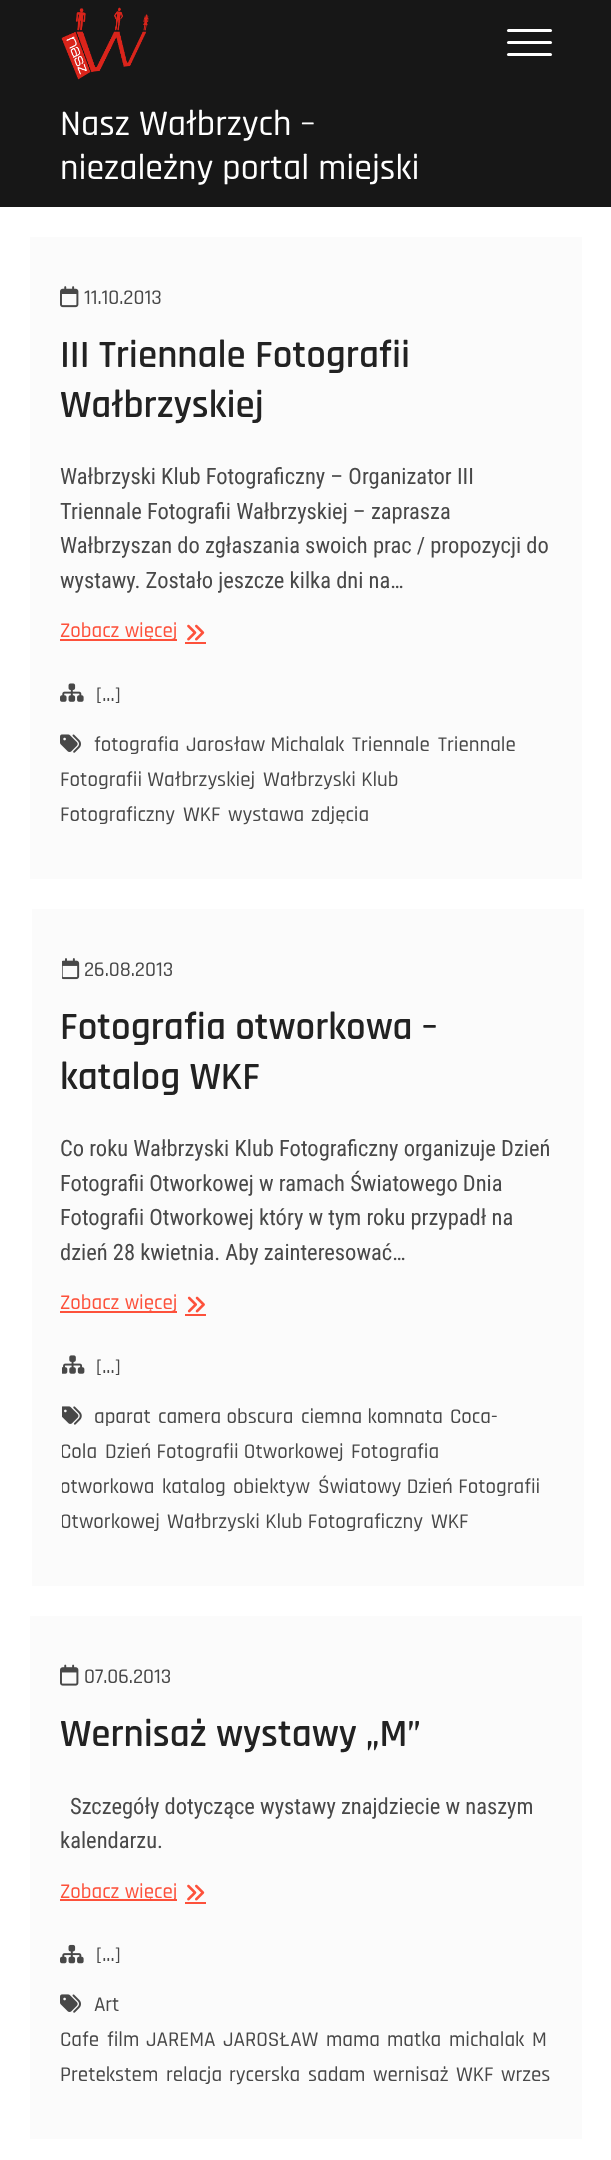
<svg xmlns="http://www.w3.org/2000/svg" width="611" height="2160" viewBox="0 0 611 2160">
  <style>
    .t1 { font: 500 36px Rajdhani; fill: #fff; }
    .t2 { font: 500 21px Rajdhani; fill: #484848; }
    .t3 { font: 600 39px Rajdhani; fill: #222; }
    .t4 { font: 22.5px Roboto Condensed; fill: #484848; }
    .t5 { font: 500 21px Rajdhani; fill: #fd513b; }
  </style>
  <defs>
    <clipPath id="clip1"><rect x="62" y="1350" width="492" height="206"/></clipPath>
  </defs>
  <rect width="100%" height="100%" fill="#fff"/>
  <rect x="0" y="0" width="611" height="207" fill="#171717"/>
  <rect x="507" y="41" width="45" height="3" rx="1.5" fill="#fff"/>
  <rect x="507" y="29" width="45" height="3" rx="1.5" fill="#fff"/>
  <rect x="507" y="53" width="45" height="3" rx="1.5" fill="#fff"/>
  <image x="61" y="7" width="88" height="73" href="images/1.png"/>
  <text x="60" y="135" class="t1">Nasz Wałbrzych –</text>
  <text x="60" y="179" class="t1">niezależny portal miejski</text>
  <rect x="30" y="237" width="552" height="642" fill="#fbfbfb"/>
  <image x="60" y="286" width="19" height="22" href="images/2.png"/>
  <text x="84" y="304" class="t2">11.10.2013</text>
  <text x="60" y="367" class="t3">III Triennale Fotografii</text>
  <text x="60" y="417" class="t3">Wałbrzyskiej</text>
  <text x="60" y="484" class="t4">Wałbrzyski Klub Fotograficzny – Organizator III</text>
  <text x="60" y="519" class="t4">Triennale Fotografii Wałbrzyskiej – zaprasza</text>
  <text x="60" y="553" class="t4">Wałbrzyszan do zgłaszania swoich prac / propozycji do</text>
  <text x="60" y="588" class="t4">wystawy. Zostało jeszcze kilka dni na…</text>
  <rect x="60" y="639" width="117" height="2" fill="#fd513b"/>
  <text x="60" y="637" class="t5">Zobacz więcej</text>
  <image x="187" y="624" width="18" height="17" href="images/3.png"/>
  <rect x="185" y="642" width="21" height="2" fill="#fd513b"/>
  <image x="60" y="683" width="24" height="19" href="images/4.png"/>
  <text x="96" y="701" class="t2">[...]</text>
  <image x="60" y="734" width="21" height="19" href="images/5.png"/>
  <text x="94" y="751" class="t2">fotografia</text>
  <text x="186" y="751" class="t2">Jarosław Michalak</text>
  <text x="352" y="751" class="t2">Triennale</text>
  <text x="438" y="751" class="t2">Triennale</text>
  <text x="60" y="786" class="t2">Fotografii Wałbrzyskiej</text>
  <text x="263" y="786" class="t2">Wałbrzyski Klub</text>
  <text x="60" y="821" class="t2">Fotograficzny</text>
  <text x="183" y="821" class="t2">WKF</text>
  <text x="228" y="821" class="t2">wystawa</text>
  <text x="311" y="821" class="t2">zdjęcia</text>
  <rect x="32" y="909" width="552" height="677" fill="#fbfbfb"/>
  <image x="62" y="958" width="18" height="22" href="images/6.png"/>
  <text x="84" y="976" class="t2">26.08.2013</text>
  <text x="60" y="1039" class="t3">Fotografia otworkowa –</text>
  <text x="60" y="1089" class="t3">katalog WKF</text>
  <text x="60" y="1156" class="t4">Co roku Wałbrzyski Klub Fotograficzny organizuje Dzień</text>
  <text x="60" y="1191" class="t4">Fotografii Otworkowej w ramach Światowego Dnia</text>
  <text x="60" y="1225" class="t4">Fotografii Otworkowej który w tym roku przypadł na</text>
  <text x="60" y="1260" class="t4">dzień 28 kwietnia. Aby zainteresować…</text>
  <rect x="60" y="1311" width="117" height="2" fill="#fd513b"/>
  <text x="60" y="1309" class="t5">Zobacz więcej</text>
  <image x="187" y="1296" width="18" height="17" href="images/7.png"/>
  <rect x="185" y="1314" width="21" height="2" fill="#fd513b"/>
  <image x="62" y="1355" width="23" height="19" href="images/8.png"/>
  <text x="96" y="1373" class="t2">[...]</text>
  <image x="62" y="1406" width="20" height="19" href="images/9.png"/>
  <text x="94" y="1423" class="t2">aparat</text>
  <text x="158" y="1423" class="t2">camera obscura</text>
  <text x="301" y="1423" class="t2">ciemna komnata</text>
  <text x="450" y="1423" class="t2">Coca-</text>
  <g clip-path="url(#clip1)">
    <text x="60" y="1458" class="t2">Cola</text>
  </g>
  <text x="105" y="1458" class="t2">Dzień Fotografii Otworkowej</text>
  <text x="351" y="1458" class="t2">Fotografia</text>
  <g clip-path="url(#clip1)">
    <text x="60" y="1493" class="t2">otworkowa</text>
  </g>
  <text x="162" y="1493" class="t2">katalog</text>
  <text x="233" y="1493" class="t2">obiektyw</text>
  <text x="318" y="1493" class="t2">Światowy Dzień Fotografii</text>
  <g clip-path="url(#clip1)">
    <text x="60" y="1528" class="t2">Otworkowej</text>
  </g>
  <text x="167" y="1528" class="t2">Wałbrzyski Klub Fotograficzny</text>
  <text x="431" y="1528" class="t2">WKF</text>
  <rect x="30" y="1616" width="552" height="523" fill="#fbfbfb"/>
  <image x="60" y="1664" width="19" height="22" href="images/10.png"/>
  <text x="84" y="1683" class="t2">07.06.2013</text>
  <text x="60" y="1746" class="t3">Wernisaż wystawy „M”</text>
  <text x="70" y="1814" class="t4">Szczegóły dotyczące wystawy znajdziecie w naszym</text>
  <text x="60" y="1848" class="t4">kalendarzu.</text>
  <rect x="60" y="1899" width="117" height="2" fill="#fd513b"/>
  <text x="60" y="1898" class="t5">Zobacz więcej</text>
  <image x="187" y="1884" width="18" height="17" href="images/11.png"/>
  <rect x="185" y="1902" width="21" height="2" fill="#fd513b"/>
  <image x="60" y="1944" width="24" height="20" href="images/12.png"/>
  <text x="96" y="1961" class="t2">[...]</text>
  <image x="60" y="1994" width="21" height="19" href="images/13.png"/>
  <text x="94" y="2011" class="t2">Art</text>
  <text x="60" y="2046" class="t2">Cafe</text>
  <text x="107" y="2046" class="t2">film</text>
  <text x="146" y="2046" class="t2">JAREMA</text>
  <text x="223" y="2046" class="t2">JAROSŁAW</text>
  <text x="326" y="2046" class="t2">mama</text>
  <text x="387" y="2046" class="t2">matka</text>
  <text x="449" y="2046" class="t2">michalak</text>
  <text x="532" y="2046" class="t2">M</text>
  <text x="60" y="2081" class="t2">Pretekstem</text>
  <text x="166" y="2081" class="t2">relacja</text>
  <text x="229" y="2081" class="t2">rycerska</text>
  <text x="308" y="2081" class="t2">sadam</text>
  <text x="373" y="2081" class="t2">wernisaż</text>
  <text x="456" y="2081" class="t2">WKF</text>
  <text x="501" y="2081" class="t2">wrzes</text>
</svg>
